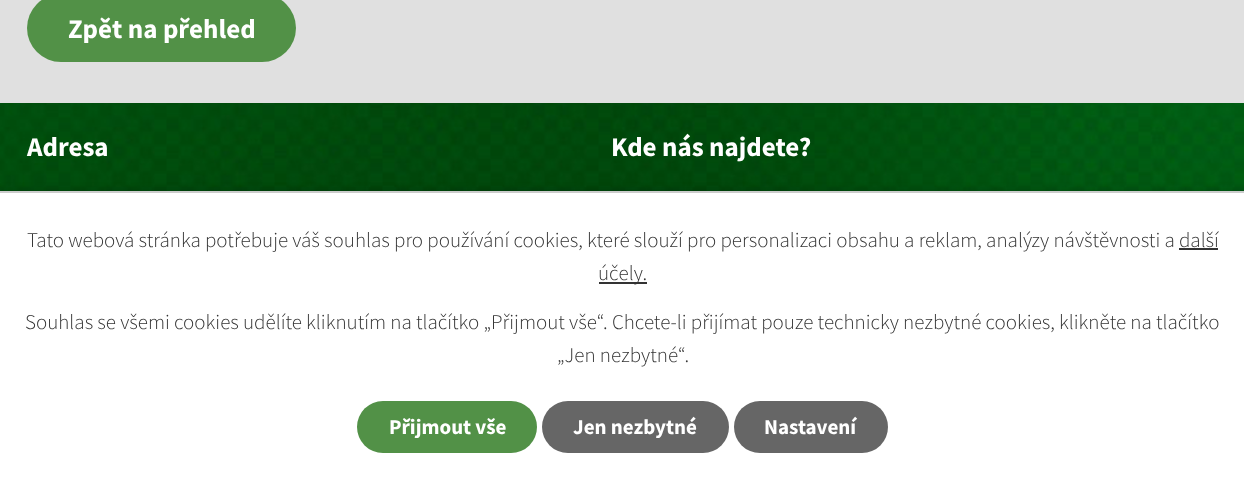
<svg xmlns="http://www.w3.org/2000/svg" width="1244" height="481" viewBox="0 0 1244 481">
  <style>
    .t1 { font: bold 27px Source Sans Pro; fill: #fff; }
    .t2 { font: 300 21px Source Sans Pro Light; fill: #333; }
    .t3 { font: bold 21px Source Sans Pro; fill: #fff; }
  </style>
  <rect width="100%" height="100%" fill="#e0e0e0"/>
  <rect x="27" y="-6" width="269" height="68" rx="34" fill="#529147"/>
  <text x="68" y="38" class="t1">Zpět na přehled</text>
  <image x="0" y="103" width="1244" height="88" href="images/1.png"/>
  <text x="27" y="156" class="t1">Adresa</text>
  <text x="611" y="156" class="t1">Kde nás najdete?</text>
  <rect x="0" y="191" width="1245" height="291" fill="#00000033" filter="blur(4px)"/>
  <rect x="0" y="193" width="1244" height="288" fill="#fff"/>
  <rect x="0" y="191" width="1244" height="2" fill="#ccc"/>
  <text x="27" y="247" class="t2">Tato webová stránka potřebuje váš souhlas pro používání cookies, které slouží pro personalizaci obsahu a reklam, analýzy návštěvnosti a další</text>
  <rect x="599" y="282" width="48" height="2" fill="#333"/>
  <text x="598" y="280" class="t2">účely.</text>
  <rect x="1179" y="248" width="39" height="2" fill="#333"/>
  <text x="25" y="329" class="t2">Souhlas se všemi cookies udělíte kliknutím na tlačítko „Přijmout vše“. Chcete-li přijímat pouze technicky nezbytné cookies, klikněte na tlačítko</text>
  <text x="557" y="362" class="t2">„Jen nezbytné“.</text>
  <rect x="357" y="401" width="180" height="52" rx="26" fill="#529147"/>
  <text x="389" y="434" class="t3">Přijmout vše</text>
  <rect x="542" y="401" width="187" height="52" rx="26" fill="#666"/>
  <text x="573" y="434" class="t3">Jen nezbytné</text>
  <rect x="734" y="401" width="154" height="52" rx="26" fill="#666"/>
  <text x="764" y="434" class="t3">Nastavení</text>
</svg>
